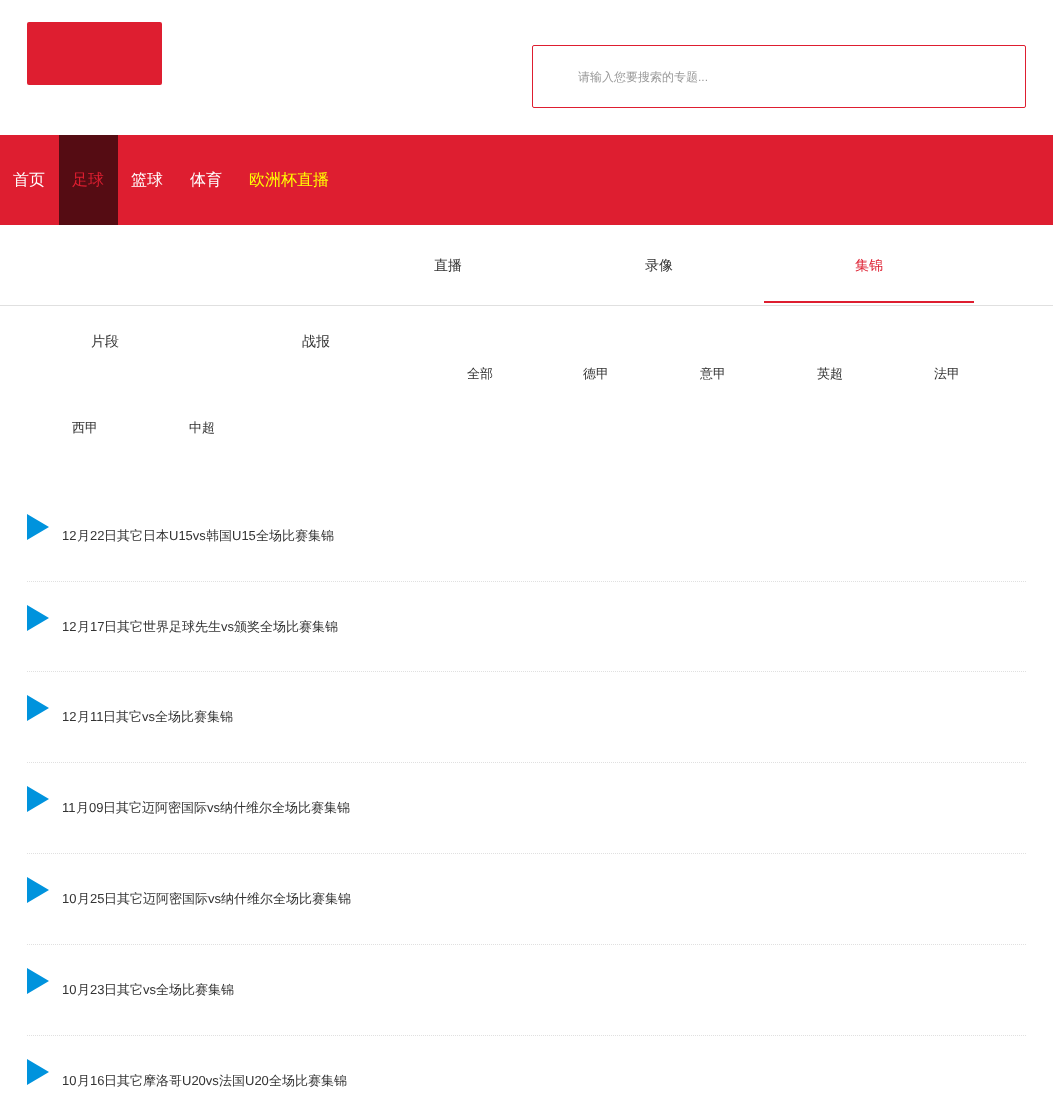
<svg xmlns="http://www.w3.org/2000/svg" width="1053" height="1101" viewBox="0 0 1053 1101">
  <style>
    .t1 { font: 500 12px WenQuanYi Zen Hei; fill: #999; }
    .t2 { font: 12px Liberation Sans; fill: #999; }
    .t3 { font: 500 16px WenQuanYi Zen Hei; fill: #fff; }
    .t4 { font: 500 16px WenQuanYi Zen Hei; fill: #de1e30; }
    .t5 { font: 500 16px WenQuanYi Zen Hei; fill: #ff0; }
    .t6 { font: 500 14px WenQuanYi Zen Hei; fill: #333; }
    .t7 { font: 500 14px WenQuanYi Zen Hei; fill: #de1e30; }
    .t8 { font: 500 13px WenQuanYi Zen Hei; fill: #333; }
    .t9 { font: 13px Liberation Sans; fill: #333; }
  </style>
  <rect width="100%" height="100%" fill="#fff"/>
  <rect x="27" y="22" width="135" height="63" rx="2" fill="#de1e30"/>
  <rect x="532.5" y="45.5" width="493" height="62" rx="1.5" fill="none" stroke="#de1e30"/>
  <text x="578" y="81" class="t1">请输入您要搜索的专题</text>
  <text x="698" y="81" class="t2">...</text>
  <rect x="0" y="135" width="1053" height="90" fill="#de1e30"/>
  <text x="13" y="185" class="t3">首页</text>
  <rect x="59" y="135" width="59" height="90" fill="#550c13"/>
  <text x="72" y="185" class="t4">足球</text>
  <text x="131" y="185" class="t3">篮球</text>
  <text x="190" y="185" class="t3">体育</text>
  <text x="249" y="185" class="t5">欧洲杯直播</text>
  <rect x="0" y="305" width="1053" height="1" fill="#e0e0e0"/>
  <text x="434" y="270" class="t6">直播</text>
  <text x="645" y="270" class="t6">录像</text>
  <rect x="764" y="301" width="210" height="2" fill="#de1e30"/>
  <text x="855" y="270" class="t7">集锦</text>
  <text x="91" y="346" class="t6">片段</text>
  <text x="302" y="346" class="t6">战报</text>
  <text x="467" y="378" class="t8">全部</text>
  <text x="583" y="378" class="t8">德甲</text>
  <text x="700" y="378" class="t8">意甲</text>
  <text x="817" y="378" class="t8">英超</text>
  <text x="934" y="378" class="t8">法甲</text>
  <text x="72" y="432" class="t8">西甲</text>
  <text x="189" y="432" class="t8">中超</text>
  <path d="M27 581.5H1026" fill="none" stroke="#e0e0e0" stroke-dasharray="1 1"/>
  <path d="M27 540V514L49 527Z" fill="#0093dd"/>
  <text x="62" y="540" class="t9">12</text>
  <text x="77" y="540" class="t8">月</text>
  <text x="90" y="540" class="t9">22</text>
  <text x="104" y="540" class="t8">日其它日本</text>
  <text x="169" y="540" class="t9">U15vs</text>
  <text x="206" y="540" class="t8">韩国</text>
  <text x="232" y="540" class="t9">U15</text>
  <text x="256" y="540" class="t8">全场比赛集锦</text>
  <path d="M27 671.5H1026" fill="none" stroke="#e0e0e0" stroke-dasharray="1 1"/>
  <path d="M27 631V605L49 618Z" fill="#0093dd"/>
  <text x="62" y="631" class="t9">12</text>
  <text x="77" y="631" class="t8">月</text>
  <text x="90" y="631" class="t9">17</text>
  <text x="104" y="631" class="t8">日其它世界足球先生</text>
  <text x="221" y="631" class="t9">vs</text>
  <text x="234" y="631" class="t8">颁奖全场比赛集锦</text>
  <path d="M27 762.5H1026" fill="none" stroke="#e0e0e0" stroke-dasharray="1 1"/>
  <path d="M27 721V695L49 708Z" fill="#0093dd"/>
  <text x="62" y="721" class="t9">12</text>
  <text x="77" y="721" class="t8">月</text>
  <text x="90" y="721" class="t9">11</text>
  <text x="103" y="721" class="t8">日其它</text>
  <text x="142" y="721" class="t9">vs</text>
  <text x="155" y="721" class="t8">全场比赛集锦</text>
  <path d="M27 853.5H1026" fill="none" stroke="#e0e0e0" stroke-dasharray="1 1"/>
  <path d="M27 812V786L49 799Z" fill="#0093dd"/>
  <text x="62" y="812" class="t9">11</text>
  <text x="76" y="812" class="t8">月</text>
  <text x="89" y="812" class="t9">09</text>
  <text x="103" y="812" class="t8">日其它迈阿密国际</text>
  <text x="207" y="812" class="t9">vs</text>
  <text x="220" y="812" class="t8">纳什维尔全场比赛集锦</text>
  <path d="M27 944.5H1026" fill="none" stroke="#e0e0e0" stroke-dasharray="1 1"/>
  <path d="M27 903V877L49 890Z" fill="#0093dd"/>
  <text x="62" y="903" class="t9">10</text>
  <text x="77" y="903" class="t8">月</text>
  <text x="90" y="903" class="t9">25</text>
  <text x="104" y="903" class="t8">日其它迈阿密国际</text>
  <text x="208" y="903" class="t9">vs</text>
  <text x="221" y="903" class="t8">纳什维尔全场比赛集锦</text>
  <path d="M27 1035.5H1026" fill="none" stroke="#e0e0e0" stroke-dasharray="1 1"/>
  <path d="M27 994V968L49 981Z" fill="#0093dd"/>
  <text x="62" y="994" class="t9">10</text>
  <text x="77" y="994" class="t8">月</text>
  <text x="90" y="994" class="t9">23</text>
  <text x="104" y="994" class="t8">日其它</text>
  <text x="143" y="994" class="t9">vs</text>
  <text x="156" y="994" class="t8">全场比赛集锦</text>
  <path d="M27 1085V1059L49 1072Z" fill="#0093dd"/>
  <text x="62" y="1085" class="t9">10</text>
  <text x="77" y="1085" class="t8">月</text>
  <text x="90" y="1085" class="t9">16</text>
  <text x="104" y="1085" class="t8">日其它摩洛哥</text>
  <text x="182" y="1085" class="t9">U20vs</text>
  <text x="219" y="1085" class="t8">法国</text>
  <text x="245" y="1085" class="t9">U20</text>
  <text x="269" y="1085" class="t8">全场比赛集锦</text>
</svg>
